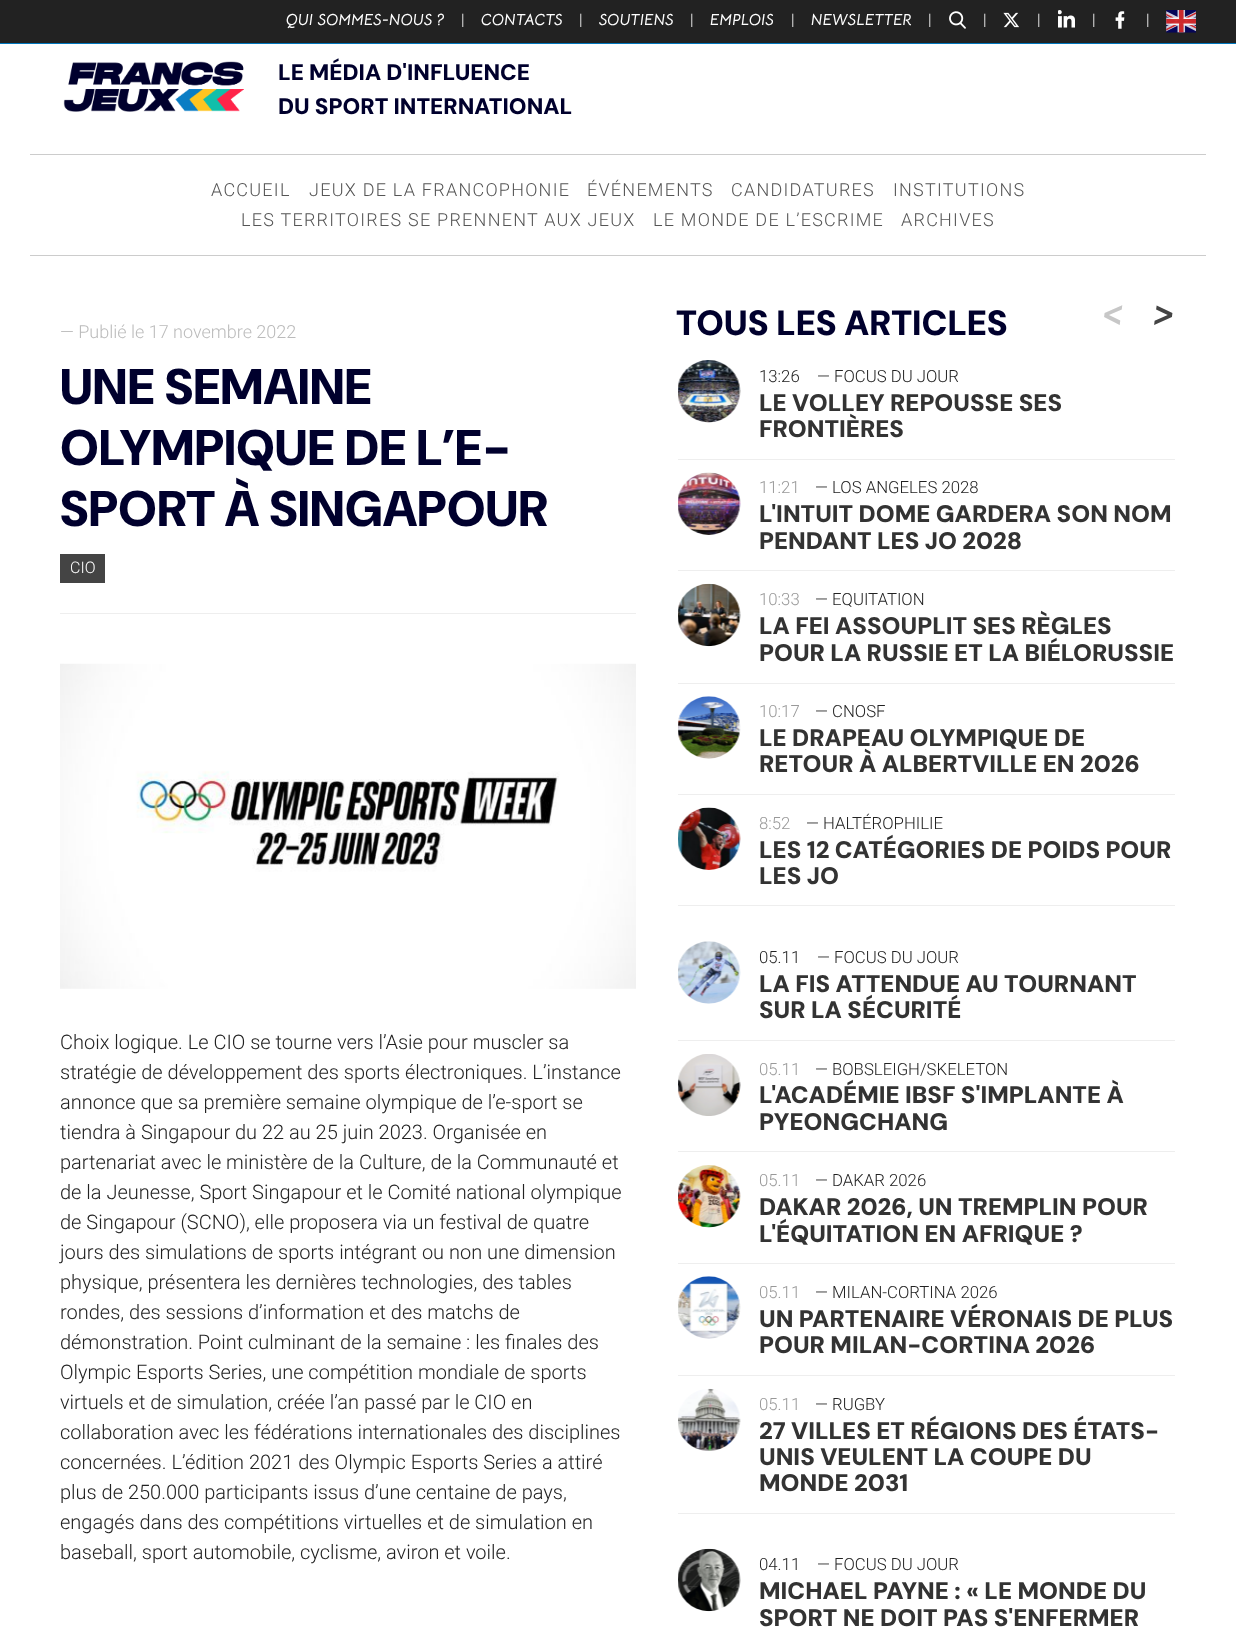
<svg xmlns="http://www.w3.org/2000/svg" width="1236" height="1631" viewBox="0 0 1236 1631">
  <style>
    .t1 { font: italic bold 16px Bellota Text; fill: #fff; }
    .t2 { font: 300 16px Roboto; fill: #fff; }
    .t3 { font: 900 22.5px DM Sans; fill: #00002d; }
    .t4 { font: 300 18px Roboto; letter-spacing: 1.25px; fill: #555; }
    .t5 { font: 300 18px Roboto; fill: #bbb; }
    .t6 { font: 900 50px 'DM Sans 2'; fill: #00002d; }
    .t7 { font: 300 20px Roboto; fill: #222; }
    .t8 { font: italic bold 48px Bellota Text; fill: #c7c7c7; }
    .t9 { font: italic bold 48px Bellota Text; fill: #444; }
    .t10 { font: 300 16.75px Roboto; fill: #222; }
    .t11 { font: 900 24px 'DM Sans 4'; fill: #333; }
    .t12 { font: 300 16.75px Roboto; fill: #999; }
    .t13 { font: 900 35px 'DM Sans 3'; fill: #00002d; }
  </style>
  <rect width="100%" height="100%" fill="#fff"/>
  <rect x="0" y="0" width="1236" height="43" fill="#222"/>
  <rect x="0" y="43" width="1236" height="1" fill="#0077bd"/>
  <text x="286" y="25" class="t1">QUI SOMMES-NOUS ?</text>
  <text x="461" y="25" class="t2">|</text>
  <text x="481" y="25" class="t1">CONTACTS</text>
  <text x="579" y="25" class="t2">|</text>
  <text x="599" y="25" class="t1">SOUTIENS</text>
  <text x="690" y="25" class="t2">|</text>
  <text x="710" y="25" class="t1">EMPLOIS</text>
  <text x="791" y="25" class="t2">|</text>
  <text x="811" y="25" class="t1">NEWSLETTER</text>
  <text x="928" y="25" class="t2">|</text>
  <image x="949" y="11" width="17" height="18" href="images/1.png"/>
  <text x="983" y="25" class="t2">|</text>
  <image x="1003" y="12" width="16" height="16" href="images/2.png"/>
  <text x="1037" y="25" class="t2">|</text>
  <image x="1058" y="10" width="17" height="18" href="images/3.png"/>
  <text x="1092" y="25" class="t2">|</text>
  <image x="1115" y="11" width="10" height="18" href="images/4.png"/>
  <text x="1146" y="25" class="t2">|</text>
  <image x="1166" y="10" width="30" height="23" href="images/5.png"/>
  <image x="63" y="61" width="181" height="51" href="images/6.png"/>
  <text x="278" y="80" class="t3">LE MÉDIA D'INFLUENCE</text>
  <text x="278" y="114" class="t3">DU SPORT INTERNATIONAL</text>
  <rect x="30" y="154" width="1176" height="1" fill="#ccc"/>
  <rect x="30" y="255" width="1176" height="1" fill="#ccc"/>
  <text x="211" y="196" class="t4">ACCUEIL</text>
  <text x="309" y="196" class="t4">JEUX DE LA FRANCOPHONIE</text>
  <text x="587" y="196" class="t4">ÉVÉNEMENTS</text>
  <text x="731" y="196" class="t4">CANDIDATURES</text>
  <text x="893" y="196" class="t4">INSTITUTIONS</text>
  <text x="241" y="226" class="t4">LES TERRITOIRES SE PRENNENT AUX JEUX</text>
  <text x="653" y="226" class="t4">LE MONDE DE L’ESCRIME</text>
  <text x="901" y="226" class="t4">ARCHIVES</text>
  <rect x="60" y="613" width="576" height="1" fill="#eee"/>
  <text x="60" y="338" class="t5">— Publié le 17 novembre 2022</text>
  <text x="60" y="404" class="t6">UNE SEMAINE</text>
  <text x="60" y="465" class="t6">OLYMPIQUE DE L’E-</text>
  <text x="60" y="526" class="t6">SPORT À SINGAPOUR</text>
  <rect x="60" y="554" width="45" height="29" fill="#444"/>
  <text x="70" y="573" class="t2">CIO</text>
  <image x="60" y="663" width="576" height="326" href="images/7.png"/>
  <text x="60" y="1049" class="t7">Choix logique. Le CIO se tourne vers l’Asie pour muscler sa</text>
  <text x="60" y="1079" class="t7">stratégie de développement des sports électroniques. L’instance</text>
  <text x="60" y="1109" class="t7">annonce que sa première semaine olympique de l’e-sport se</text>
  <text x="60" y="1139" class="t7">tiendra à Singapour du 22 au 25 juin 2023. Organisée en</text>
  <text x="60" y="1169" class="t7">partenariat avec le ministère de la Culture, de la Communauté et</text>
  <text x="60" y="1199" class="t7">de la Jeunesse, Sport Singapour et le Comité national olympique</text>
  <text x="60" y="1229" class="t7">de Singapour (SCNO), elle proposera via un festival de quatre</text>
  <text x="60" y="1259" class="t7">jours des simulations de sports intégrant ou non une dimension</text>
  <text x="60" y="1289" class="t7">physique, présentera les dernières technologies, des tables</text>
  <text x="60" y="1319" class="t7">rondes, des sessions d’information et des matchs de</text>
  <text x="60" y="1349" class="t7">démonstration. Point culminant de la semaine : les finales des</text>
  <text x="60" y="1379" class="t7">Olympic Esports Series, une compétition mondiale de sports</text>
  <text x="60" y="1409" class="t7">virtuels et de simulation, créée l’an passé par le CIO en</text>
  <text x="60" y="1439" class="t7">collaboration avec les fédérations internationales des disciplines</text>
  <text x="60" y="1469" class="t7">concernées. L’édition 2021 des Olympic Esports Series a attiré</text>
  <text x="60" y="1499" class="t7">plus de 250.000 participants issus d’une centaine de pays,</text>
  <text x="60" y="1529" class="t7">engagés dans des compétitions virtuelles et de simulation en</text>
  <text x="60" y="1559" class="t7">baseball, sport automobile, cyclisme, aviron et voile.</text>
  <text x="1102" y="328" class="t8">&lt;</text>
  <text x="1152" y="328" class="t9">&gt;</text>
  <rect x="678" y="459" width="497" height="1" fill="#eee"/>
  <image x="678" y="360" width="63" height="63" href="images/8.png"/>
  <text x="759" y="382" class="t10">13:26</text>
  <text x="817" y="382" class="t10">— FOCUS DU JOUR</text>
  <text x="759" y="411" class="t11">LE VOLLEY REPOUSSE SES</text>
  <text x="759" y="437" class="t11">FRONTIÈRES</text>
  <rect x="678" y="570" width="497" height="1" fill="#eee"/>
  <image x="678" y="472" width="63" height="63" href="images/9.png"/>
  <text x="759" y="493" class="t12">11:21</text>
  <text x="815" y="493" class="t10">— LOS ANGELES 2028</text>
  <text x="759" y="522" class="t11">L'INTUIT DOME GARDERA SON NOM</text>
  <text x="759" y="549" class="t11">PENDANT LES JO 2028</text>
  <rect x="678" y="683" width="497" height="1" fill="#eee"/>
  <image x="678" y="583" width="63" height="64" href="images/10.png"/>
  <text x="759" y="605" class="t12">10:33</text>
  <text x="815" y="605" class="t10">— EQUITATION</text>
  <text x="759" y="634" class="t11">LA FEI ASSOUPLIT SES RÈGLES</text>
  <text x="759" y="661" class="t11">POUR LA RUSSIE ET LA BIÉLORUSSIE</text>
  <rect x="678" y="794" width="497" height="1" fill="#eee"/>
  <image x="678" y="696" width="63" height="63" href="images/11.png"/>
  <text x="759" y="717" class="t12">10:17</text>
  <text x="815" y="717" class="t10">— CNOSF</text>
  <text x="759" y="746" class="t11">LE DRAPEAU OLYMPIQUE DE</text>
  <text x="759" y="772" class="t11">RETOUR À ALBERTVILLE EN 2026</text>
  <rect x="678" y="905" width="497" height="1" fill="#eee"/>
  <image x="678" y="807" width="63" height="63" href="images/12.png"/>
  <text x="759" y="829" class="t12">8:52</text>
  <text x="806" y="829" class="t10">— HALTÉROPHILIE</text>
  <text x="759" y="858" class="t11">LES 12 CATÉGORIES DE POIDS POUR</text>
  <text x="759" y="884" class="t11">LES JO</text>
  <rect x="678" y="1040" width="497" height="1" fill="#eee"/>
  <image x="678" y="941" width="63" height="63" href="images/13.png"/>
  <text x="759" y="963" class="t10">05.11</text>
  <text x="817" y="963" class="t10">— FOCUS DU JOUR</text>
  <text x="759" y="992" class="t11">LA FIS ATTENDUE AU TOURNANT</text>
  <text x="759" y="1018" class="t11">SUR LA SÉCURITÉ</text>
  <rect x="678" y="1151" width="497" height="1" fill="#eee"/>
  <image x="678" y="1054" width="63" height="62" href="images/14.png"/>
  <text x="759" y="1075" class="t12">05.11</text>
  <text x="815" y="1075" class="t10">— BOBSLEIGH/SKELETON</text>
  <text x="759" y="1103" class="t11">L'ACADÉMIE IBSF S'IMPLANTE À</text>
  <text x="759" y="1130" class="t11">PYEONGCHANG</text>
  <rect x="678" y="1263" width="497" height="1" fill="#eee"/>
  <image x="678" y="1165" width="63" height="63" href="images/15.png"/>
  <text x="759" y="1186" class="t12">05.11</text>
  <text x="815" y="1186" class="t10">— DAKAR 2026</text>
  <text x="759" y="1215" class="t11">DAKAR 2026, UN TREMPLIN POUR</text>
  <text x="759" y="1242" class="t11">L'ÉQUITATION EN AFRIQUE ?</text>
  <rect x="678" y="1375" width="497" height="1" fill="#eee"/>
  <image x="678" y="1276" width="63" height="63" href="images/16.png"/>
  <text x="759" y="1298" class="t12">05.11</text>
  <text x="815" y="1298" class="t10">— MILAN-CORTINA 2026</text>
  <text x="759" y="1327" class="t11">UN PARTENAIRE VÉRONAIS DE PLUS</text>
  <text x="759" y="1353" class="t11">POUR MILAN-CORTINA 2026</text>
  <rect x="678" y="1513" width="497" height="1" fill="#eee"/>
  <image x="678" y="1388" width="63" height="63" href="images/17.png"/>
  <text x="759" y="1410" class="t12">05.11</text>
  <text x="815" y="1410" class="t10">— RUGBY</text>
  <text x="759" y="1439" class="t11">27 VILLES ET RÉGIONS DES ÉTATS-</text>
  <text x="759" y="1465" class="t11">UNIS VEULENT LA COUPE DU</text>
  <text x="759" y="1491" class="t11">MONDE 2031</text>
  <image x="678" y="1548" width="63" height="64" href="images/18.png"/>
  <text x="759" y="1570" class="t10">04.11</text>
  <text x="817" y="1570" class="t10">— FOCUS DU JOUR</text>
  <text x="759" y="1599" class="t11">MICHAEL PAYNE : « LE MONDE DU</text>
  <text x="759" y="1626" class="t11">SPORT NE DOIT PAS S'ENFERMER</text>
  <text x="676" y="335" class="t13">TOUS LES ARTICLES</text>
</svg>
